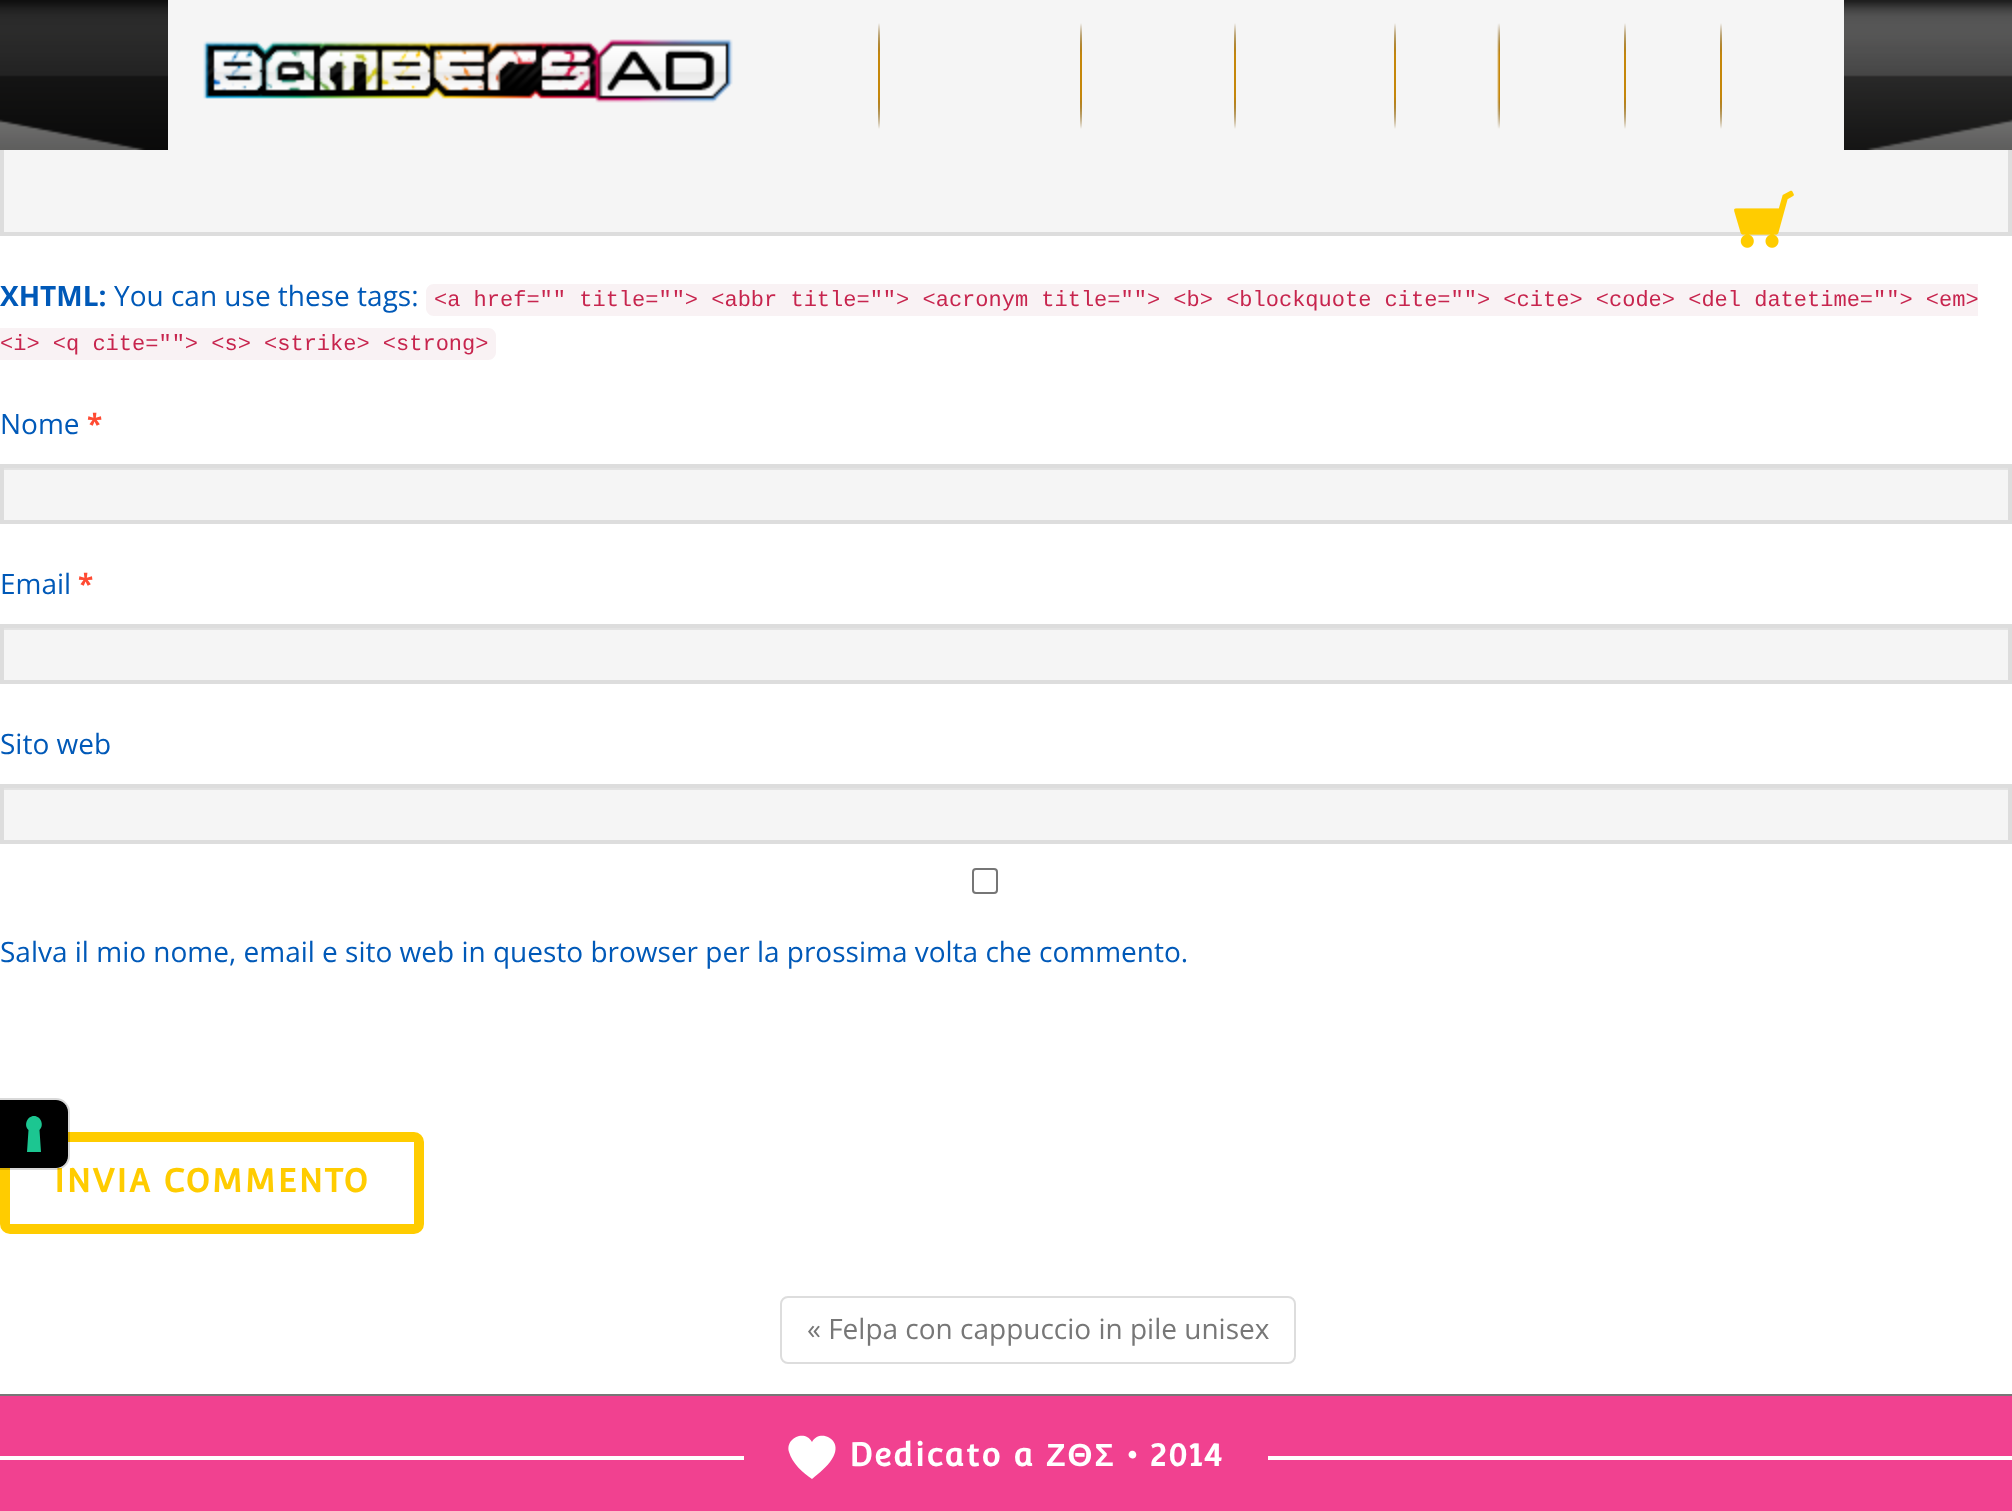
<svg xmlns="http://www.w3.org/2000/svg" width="2012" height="1511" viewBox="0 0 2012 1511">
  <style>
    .t1 { font: bold 28px Open Sans; fill: #0059b8; }
    .t2 { font: 28px Open Sans; fill: #0059b8; }
    .t3 { font: 22px Liberation Mono; fill: #c7254e; }
    .t4 { font: bold 28px Open Sans; fill: #ff4b33; }
    .t5 { font: bold 32px Convergence; letter-spacing: 2px; fill: #fc0; }
    .t6 { font: 28px Open Sans; fill: #777; }
    .t7 { font: bold 32px Convergence; letter-spacing: 2px; fill: #fff; }
    .t8 { font: bold 32px Liberation Sans; letter-spacing: 2px; fill: #fff; }
  </style>
  <rect width="100%" height="100%" fill="#fff"/>
  <rect x="2" y="-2" width="2008" height="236" fill="#f5f5f5" stroke="#ddd" stroke-width="4"/>
  <image x="0" y="0" width="168" height="150" href="images/1.png"/>
  <image x="203" y="39" width="530" height="64" href="images/2.png"/>
  <image x="878" y="23" width="2" height="106" href="images/3.png"/>
  <image x="1080" y="23" width="2" height="106" href="images/3.png"/>
  <image x="1234" y="23" width="2" height="106" href="images/3.png"/>
  <image x="1394" y="23" width="2" height="106" href="images/3.png"/>
  <image x="1497" y="23" width="3" height="106" href="images/4.png"/>
  <image x="1624" y="23" width="2" height="106" href="images/3.png"/>
  <image x="1720" y="23" width="2" height="106" href="images/3.png"/>
  <image x="1734" y="190" width="60" height="58" href="images/5.png"/>
  <image x="1844" y="0" width="168" height="150" href="images/6.png"/>
  <text x="0" y="306" class="t1">XHTML:</text>
  <text x="114" y="306" class="t2">You can use these tags:</text>
  <path d="M434 284H1978V316H434C429.5 316 426 312.5 426 308V292C426 287.5 429.5 284 434 284Z" fill="#f9f2f4"/>
  <text x="434" y="306" class="t3">&lt;a href="" title=""&gt; &lt;abbr title=""&gt; &lt;acronym title=""&gt; &lt;b&gt; &lt;blockquote cite=""&gt; &lt;cite&gt; &lt;code&gt; &lt;del datetime=""&gt; &lt;em&gt;</text>
  <path d="M0 328H488C492.5 328 496 331.5 496 336V352C496 356.5 492.5 360 488 360H0Z" fill="#f9f2f4"/>
  <text x="0" y="350" class="t3">&lt;i&gt; &lt;q cite=""&gt; &lt;s&gt; &lt;strike&gt; &lt;strong&gt;</text>
  <text x="0" y="434" class="t2">Nome</text>
  <text x="87" y="434" class="t4">*</text>
  <rect x="4" y="470" width="2004" height="50" fill="#f5f5f5"/>
  <rect x="4" y="468" width="2004" height="2" fill="#e3e3e3"/>
  <rect x="2" y="466" width="2008" height="56" fill="none" stroke="#ddd" stroke-width="4"/>
  <text x="0" y="594" class="t2">Email</text>
  <text x="78" y="594" class="t4">*</text>
  <rect x="4" y="630" width="2004" height="50" fill="#f5f5f5"/>
  <rect x="4" y="628" width="2004" height="2" fill="#e3e3e3"/>
  <rect x="2" y="626" width="2008" height="56" fill="none" stroke="#ddd" stroke-width="4"/>
  <text x="0" y="754" class="t2">Sito web</text>
  <rect x="4" y="790" width="2004" height="50" fill="#f5f5f5"/>
  <rect x="4" y="788" width="2004" height="2" fill="#e3e3e3"/>
  <rect x="2" y="786" width="2008" height="56" fill="none" stroke="#ddd" stroke-width="4"/>
  <rect x="973" y="869" width="24" height="24" rx="3" fill="none" stroke="#767676" stroke-width="2"/>
  <text x="0" y="962" class="t2">Salva il mio nome, email e sito web in questo browser per la prossima volta che commento.</text>
  <rect x="5" y="1137" width="414" height="92" rx="5" fill="none" stroke="#fc0" stroke-width="10"/>
  <text x="54" y="1192" class="t5">INVIA COMMENTO</text>
  <rect x="781" y="1297" width="514" height="66" rx="7" fill="none" stroke="#ddd" stroke-width="2"/>
  <text x="807" y="1339" class="t6">« Felpa con cappuccio in pile unisex</text>
  <path d="M-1 1099H56C63 1099 69 1105 69 1112V1156C69 1163 63 1169 56 1169H-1Z" fill="none" stroke="#00000026" stroke-width="2"/>
  <path d="M0 1100H56C62.5 1100 68 1105.5 68 1112V1156C68 1162.5 62.5 1168 56 1168H0Z" fill="#000"/>
  <path d="M34 1116C41 1116 44.5 1125.5 39.5 1130L41 1152H27L28.5 1130C23.5 1125.5 27 1116 34 1116Z" fill="#1cc691" fill-rule="evenodd"/>
  <rect x="0" y="1394" width="2012" height="2" fill="#777"/>
  <rect x="0" y="1396" width="2012" height="115" fill="#f14190"/>
  <rect x="0" y="1456" width="744" height="4" fill="#fff"/>
  <path d="M832 1459C827 1467 819 1473 812 1479C803 1473 792 1463 789 1452C785 1438 805 1429 812 1442C819 1428 845 1439 832 1459Z" fill="#fff"/>
  <text x="849" y="1466" class="t7">Dedicato a</text>
  <text x="1046" y="1466" class="t8">ΖΘΣ</text>
  <text x="1127" y="1466" class="t7">• 2014</text>
  <rect x="1268" y="1456" width="744" height="4" fill="#fff"/>
</svg>
